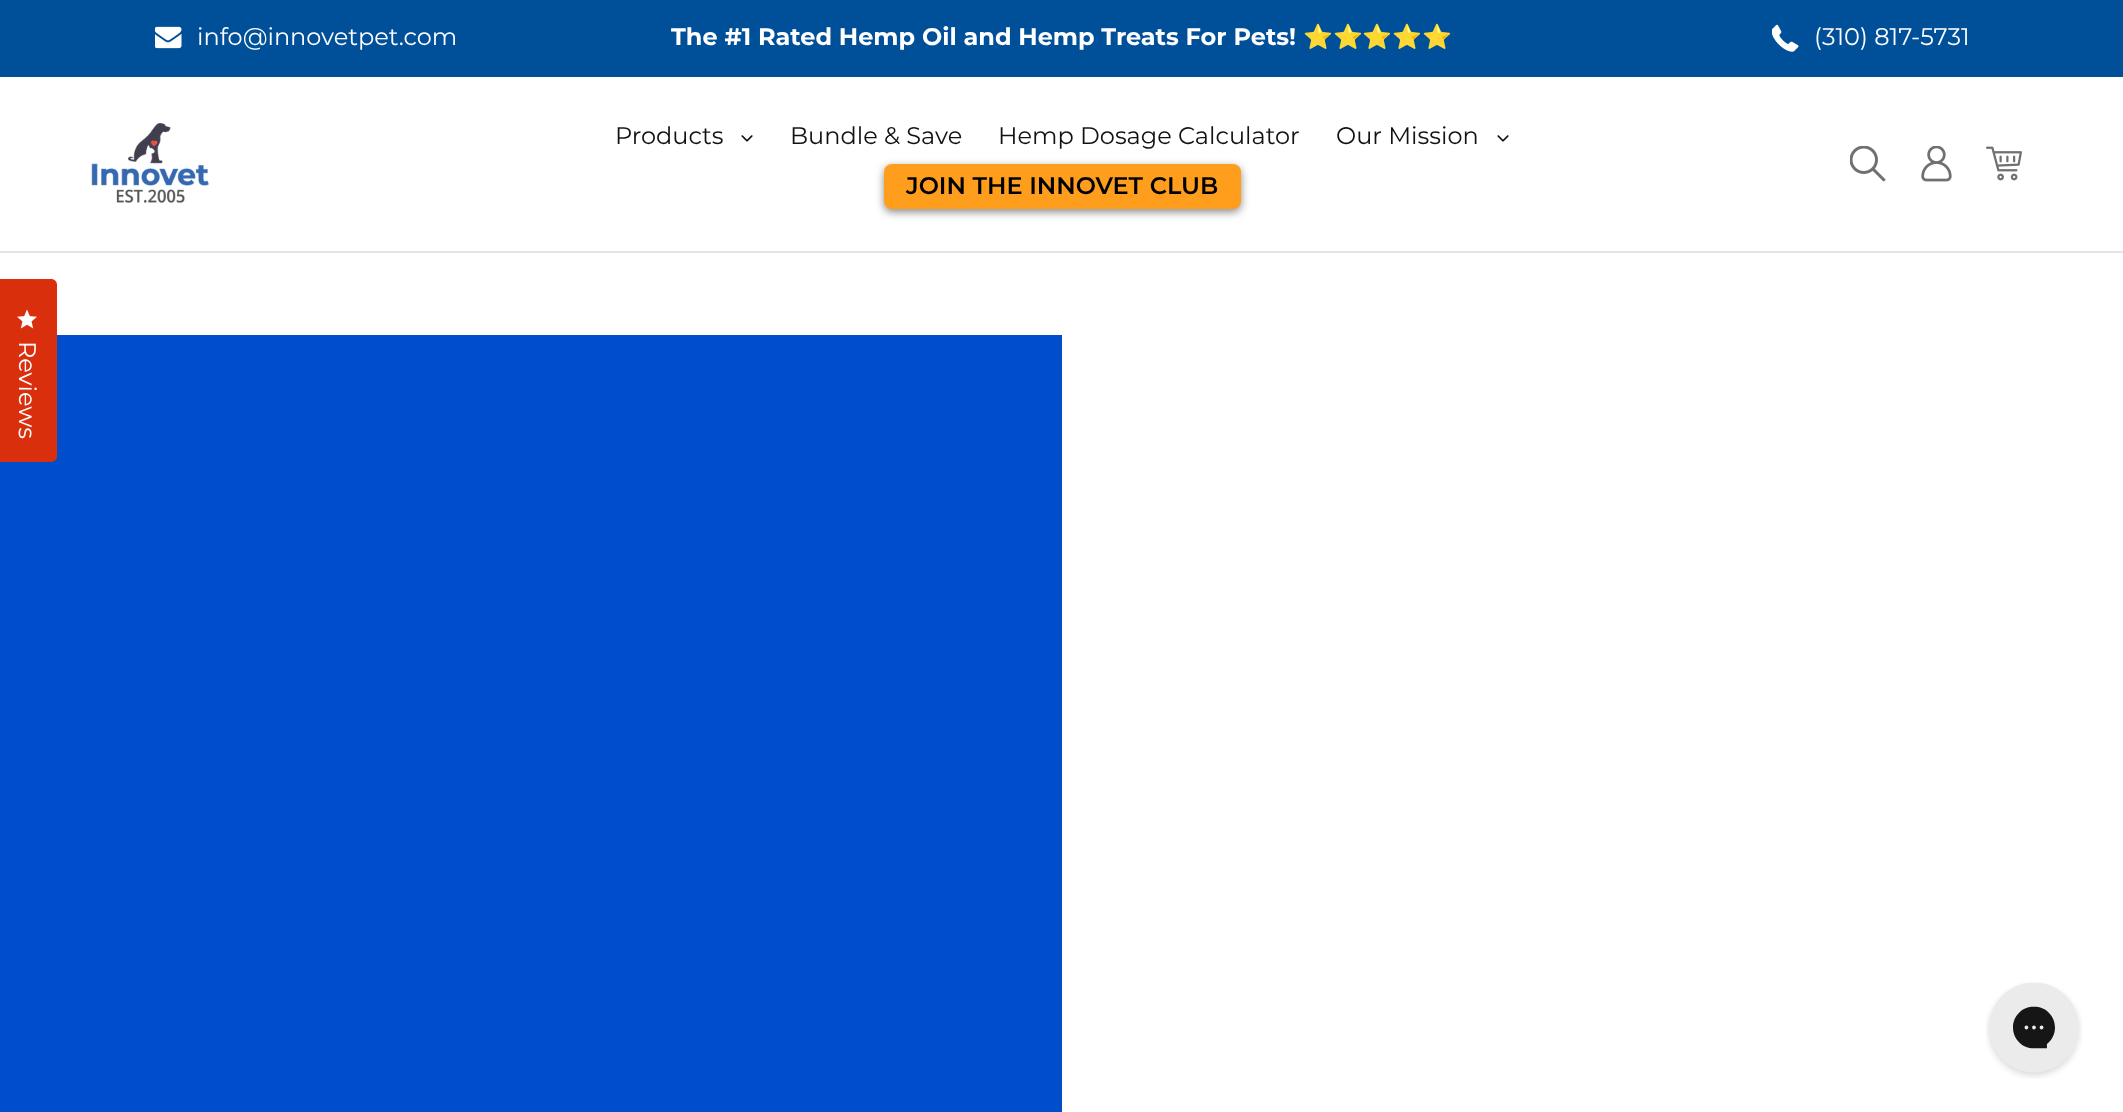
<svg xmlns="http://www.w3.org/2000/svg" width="2123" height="1112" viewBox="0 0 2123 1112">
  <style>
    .t1 { font: 24px Montserrat; fill: #fff; }
    .t2 { font: bold 24px Montserrat; fill: #fff; }
    .t3 { font: bold 24px Noto Color Emoji; fill: #fff; }
    .t4 { font: 24px Montserrat; fill: #121212; }
    .t5 { font: 600 24px Montserrat; fill: #000; }
  </style>
  <rect width="100%" height="100%" fill="#fff"/>
  <rect x="0" y="0" width="2123" height="77" fill="#004f99"/>
  <image x="155" y="26" width="27" height="23" href="images/1.png"/>
  <text x="197" y="45" class="t1">info@innovetpet.com</text>
  <text x="671" y="45" class="t2">The #1 Rated Hemp Oil and Hemp Treats For Pets!</text>
  <text x="1303" y="45" class="t3">⭐️⭐️⭐️⭐️⭐️</text>
  <image x="1772" y="24" width="27" height="28" href="images/2.png"/>
  <text x="1814" y="45" class="t1">(310) 817-5731</text>
  <rect x="0" y="251" width="2123" height="2" fill="#e4e4e4"/>
  <image x="91" y="123" width="118" height="81" href="images/3.png"/>
  <text x="615" y="144" class="t4">Products</text>
  <image x="741" y="135" width="12" height="7" href="images/4.png"/>
  <text x="790" y="144" class="t4">Bundle &amp; Save</text>
  <text x="998" y="144" class="t4">Hemp Dosage Calculator</text>
  <text x="1336" y="144" class="t4">Our Mission</text>
  <image x="1497" y="135" width="12" height="7" href="images/4.png"/>
  <rect x="884" y="167" width="357" height="45" rx="8" fill="#888" filter="blur(4px)"/>
  <rect x="884" y="164" width="357" height="45" rx="8" fill="#ff9e1d"/>
  <text x="906" y="194" class="t5">JOIN THE INNOVET CLUB</text>
  <image x="1850" y="146" width="36" height="36" href="images/5.png"/>
  <image x="1921" y="146" width="31" height="36" href="images/6.png"/>
  <image x="1986" y="146" width="36" height="35" href="images/7.png"/>
  <rect x="0" y="335" width="1062" height="777" fill="#004ecc"/>
  <path d="M-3 279H51C54.5 279 57 281.5 57 285V456C57 459.5 54.5 462 51 462H-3Z" fill="#da2f0c"/>
  <image x="17" y="309" width="20" height="20" href="images/8.png"/>
  <text x="19" y="341" transform="rotate(90.1 19 341)" class="t1">Reviews</text>
  <image x="1986" y="982" width="96" height="97" href="images/9.png"/>
</svg>
